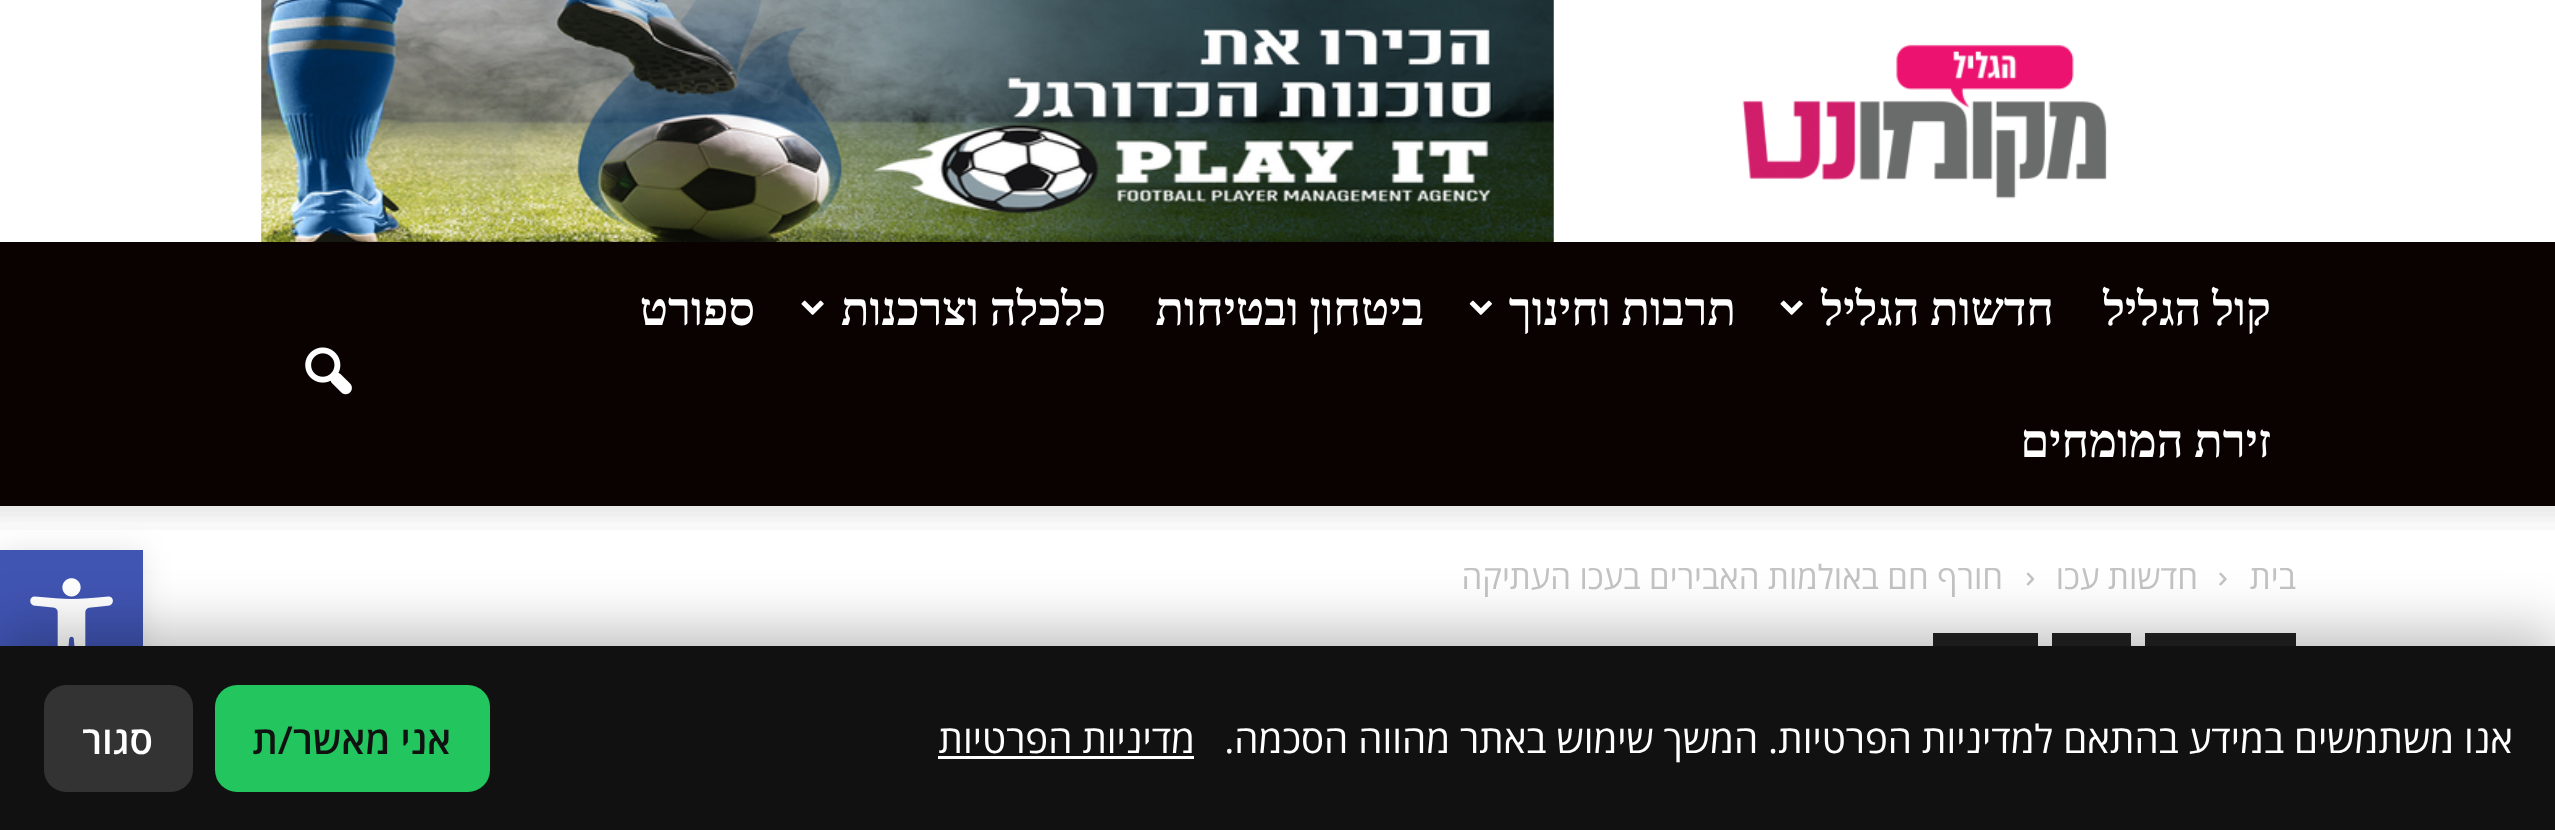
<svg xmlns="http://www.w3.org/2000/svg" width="2555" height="830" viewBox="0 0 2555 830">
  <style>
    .t1 { font: bold 46.75px Liberation Serif; direction: rtl; fill: #fff; }
    .t2 { font: 33px Open Sans; direction: rtl; fill: #c3c3c3; }
    .t3 { font: 38.5px Open Sans; direction: rtl; fill: #fff; }
    .t4 { font: 600 38.5px Open Sans; direction: rtl; fill: #111; }
    .t5 { font: 600 38.5px Open Sans; direction: rtl; fill: #fff; }
  </style>
  <rect width="100%" height="100%" fill="#fff"/>
  <image x="1742" y="44" width="365" height="155" href="images/1.png"/>
  <image x="261" y="0" width="1293" height="242" href="images/2.png"/>
  <rect x="0" y="242" width="2555" height="264" fill="#0a0101"/>
  <text x="2271" y="325" word-spacing="-1" class="t1">קול הגליל</text>
  <text x="2054" y="325" word-spacing="-1" class="t1">חדשות הגליל</text>
  <image x="1780" y="300" width="23" height="15" href="images/3.png"/>
  <text x="1736" y="325" word-spacing="-1" class="t1">תרבות וחינוך</text>
  <image x="1469" y="300" width="23" height="15" href="images/4.png"/>
  <text x="1424" y="325" word-spacing="-1" class="t1">ביטחון ובטיחות</text>
  <text x="1106" y="325" word-spacing="-1" class="t1">כלכלה וצרכנות</text>
  <image x="801" y="300" width="23" height="15" href="images/3.png"/>
  <text x="755" y="325" class="t1">ספורט</text>
  <text x="2271" y="457" word-spacing="-1" class="t1">זירת המומחים</text>
  <image x="305" y="347" width="47" height="48" href="images/5.png"/>
  <image x="0" y="506" width="2555" height="24" href="images/6.png"/>
  <text x="2296" y="589" class="t2">בית</text>
  <image x="2219" y="572" width="8" height="14" href="images/7.png"/>
  <text x="2198" y="589" class="t2">חדשות עכו</text>
  <image x="2026" y="572" width="9" height="14" href="images/8.png"/>
  <text x="2003" y="589" class="t2">חורף חם באולמות האבירים בעכו העתיקה</text>
  <rect x="2145" y="633" width="151" height="13" fill="#222"/>
  <rect x="2052" y="633" width="79" height="13" fill="#222"/>
  <rect x="1933" y="633" width="105" height="13" fill="#222"/>
  <rect x="0" y="550" width="143" height="143" fill="#0000001a" filter="blur(14px)"/>
  <rect x="0" y="550" width="143" height="96" fill="#4054b2"/>
  <image x="30" y="578" width="83" height="68" href="images/9.png"/>
  <rect x="0" y="630" width="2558" height="184" fill="#00000040" filter="blur(27.5px)"/>
  <rect x="0" y="646" width="2555" height="184" fill="#111"/>
  <text x="2513" y="753" class="t3">אנו משתמשים במידע בהתאם למדיניות הפרטיות. המשך שימוש באתר מהווה הסכמה.</text>
  <text x="1195" y="753" class="t3">מדיניות הפרטיות</text>
  <rect x="938" y="756" width="256" height="3" fill="#fff"/>
  <rect x="215" y="685" width="275" height="107" rx="22" fill="#22c55e"/>
  <text x="451" y="754" class="t4">אני מאשר/ת</text>
  <rect x="44" y="685" width="149" height="107" rx="22" fill="#333"/>
  <text x="153" y="754" class="t5">סגור</text>
</svg>
